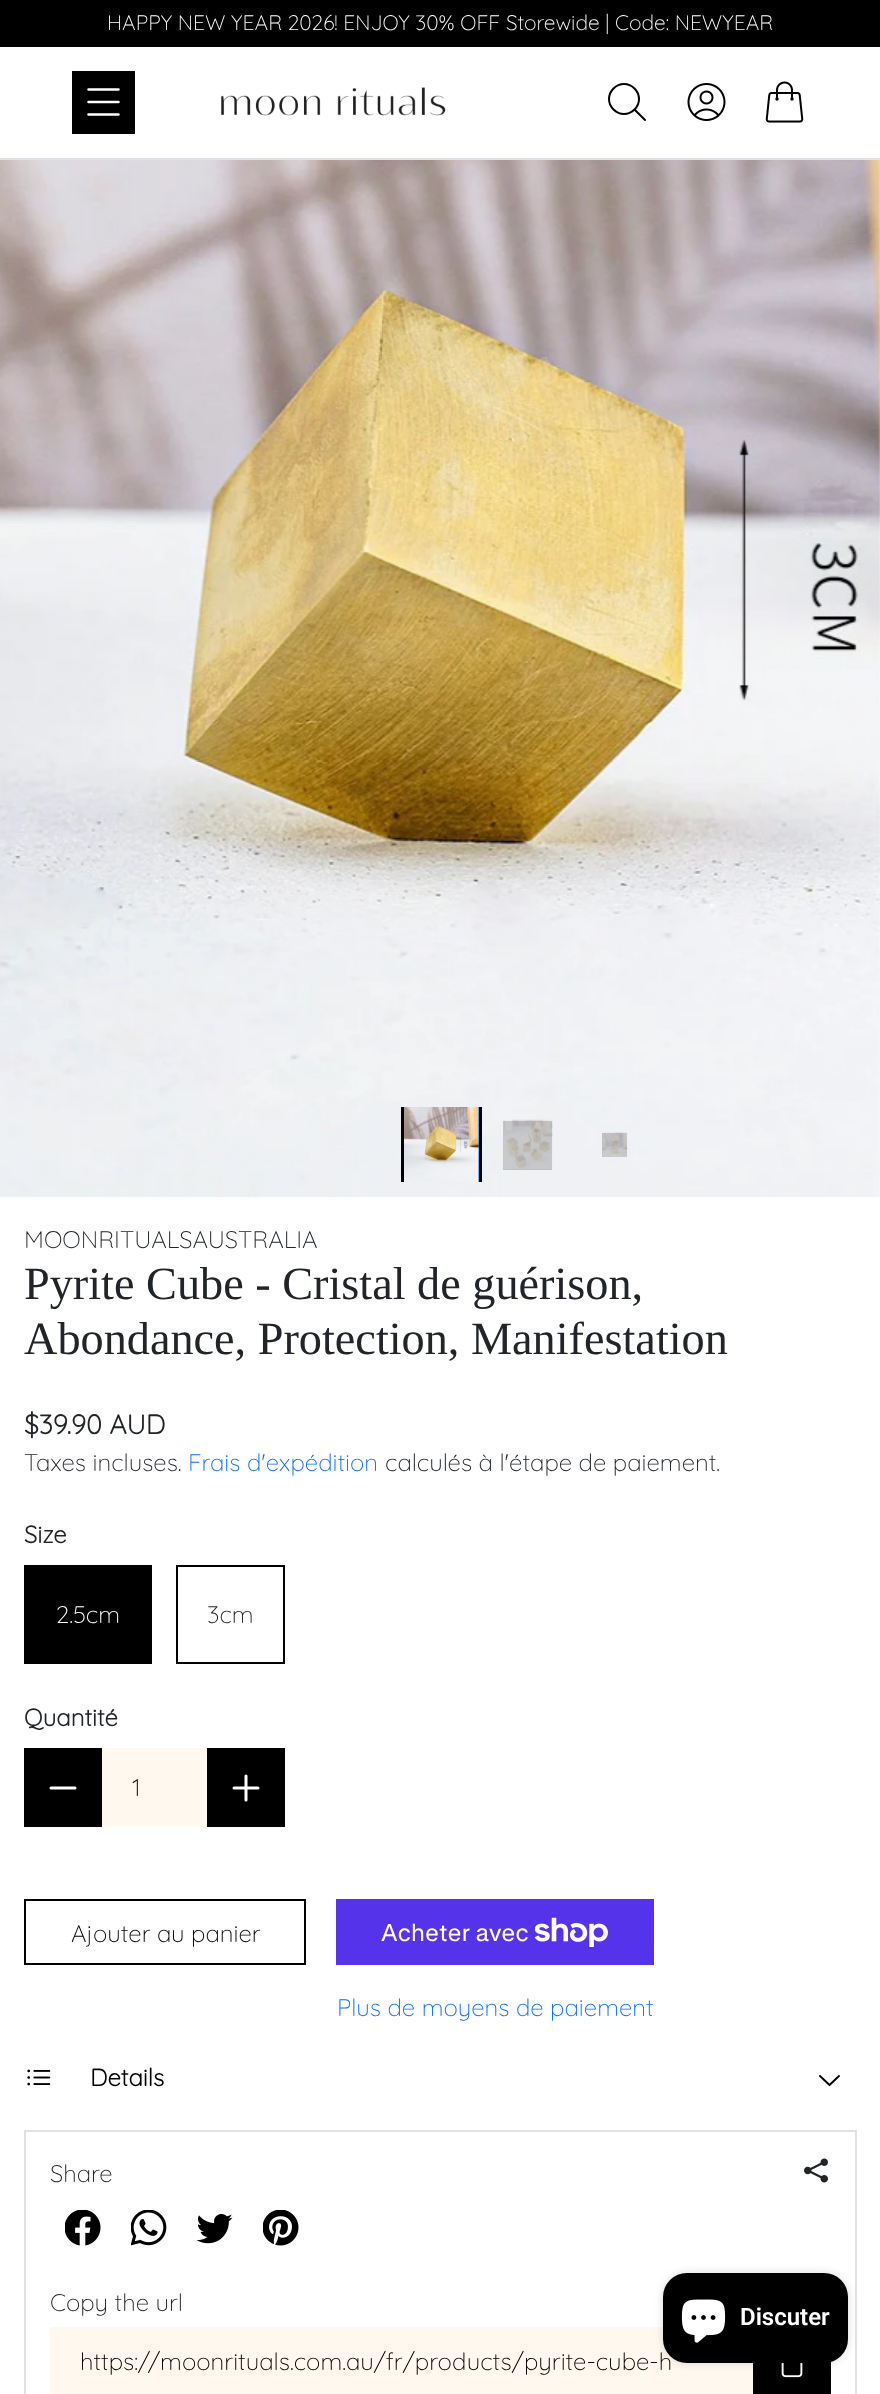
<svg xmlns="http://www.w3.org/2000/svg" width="880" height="2394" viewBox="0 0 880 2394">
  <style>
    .t1 { font: 300 21px Quicksand; fill: #fff; }
    .t2 { font: 300 24px Quicksand; fill: #212529; }
    .t3 { font: 46.25px Liberation Serif; fill: #212529; }
    .t4 { font: bold 27px Quicksand; fill: #212529; }
    .t5 { font: 300 24px Quicksand; fill: #0d6efd; }
    .t6 { font: bold 24px Quicksand; fill: #212529; }
    .t7 { font: 300 24px Quicksand; fill: #fff; }
    .t8 { font: 300 24px Quicksand; fill: #000; }
    .t9 { font: 24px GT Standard; fill: #fff; }
    .t10 { font: bold 24px Quicksand; fill: #000; }
    .t11 { font: 600 24px Roboto; fill: #fff; }
  </style>
  <defs>
    <clipPath id="clip1"><rect x="224" y="1107" width="435" height="75"/></clipPath>
  </defs>
  <rect width="100%" height="100%" fill="#fff"/>
  <rect x="0" y="0" width="880" height="47" fill="#000"/>
  <text x="107" y="30" class="t1">HAPPY NEW YEAR 2026! ENJOY 30% OFF Storewide | Code: NEWYEAR</text>
  <rect x="0" y="158" width="880" height="2" fill="#dee2e6"/>
  <rect x="72" y="71" width="63" height="63" fill="#000"/>
  <path d="M88.5 89.5H118.5M88.5 102H118.5M88.5 114.5H118.5" fill="none" stroke="#fff" stroke-width="2.5" stroke-linecap="round" stroke-linejoin="round"/>
  <image x="221" y="87" width="225" height="29" href="images/1.png"/>
  <path d="M645 120L634.5 109.5M634.5 109.5C640.5 103.5 640.5 94.5 634.5 88.5C628.5 82.5 619.5 82.5 613.5 88.5C607.5 94.5 607.5 103.5 613.5 109.5C619.5 115.5 628.5 115.5 634.5 109.5Z" fill="none" stroke="#000" stroke-width="2" stroke-linecap="round" stroke-linejoin="round"/>
  <image x="687" y="83" width="39" height="38" href="images/2.png"/>
  <image x="765" y="81" width="39" height="42" href="images/3.png"/>
  <image x="0" y="160" width="880" height="1037" href="images/4.png"/>
  <rect x="478" y="1107" width="1" height="75" fill="#007aff"/>
  <image x="404" y="1107" width="75" height="75" href="images/5.png"/>
  <g clip-path="url(#clip1)">
    <rect x="402.5" y="1105.5" width="78" height="78" fill="none" stroke="#000" stroke-width="3"/>
  </g>
  <rect x="503" y="1121" width="49" height="49" fill="#00000033"/>
  <image x="503" y="1119" width="50" height="50" href="images/6.png"/>
  <rect x="602" y="1133" width="25" height="24" fill="#00000033"/>
  <image x="602" y="1132" width="26" height="25" href="images/7.png"/>
  <text x="24" y="1248" class="t2">MOONRITUALSAUSTRALIA</text>
  <text x="24" y="1299" class="t3">Pyrite Cube - Cristal de guérison,</text>
  <text x="24" y="1354" class="t3">Abondance, Protection, Manifestation</text>
  <text x="24" y="1434" class="t4">$39.90 AUD</text>
  <text x="24" y="1471" class="t2">Taxes incluses.</text>
  <text x="188" y="1471" class="t5">Frais d'expédition</text>
  <text x="385" y="1471" class="t2">calculés à l'étape de paiement.</text>
  <text x="24" y="1543" class="t6">Size</text>
  <rect x="24" y="1565" width="128" height="99" fill="#000"/>
  <text x="56" y="1623" class="t7">2.5cm</text>
  <rect x="177" y="1566" width="107" height="97" fill="none" stroke="#000" stroke-width="2"/>
  <text x="207" y="1623" class="t2">3cm</text>
  <text x="24" y="1726" class="t6">Quantité</text>
  <rect x="24" y="1748" width="78" height="79" fill="#000"/>
  <path d="M75 1788H51" fill="none" stroke="#fff" stroke-width="3" stroke-linecap="round" stroke-linejoin="round"/>
  <rect x="102" y="1748" width="105" height="79" fill="#fff8ef"/>
  <text x="132" y="1796" class="t8">1</text>
  <rect x="207" y="1748" width="78" height="79" fill="#000"/>
  <path d="M246 1776V1800M258 1788H234" fill="none" stroke="#fff" stroke-width="3" stroke-linecap="round" stroke-linejoin="round"/>
  <rect x="25" y="1900" width="280" height="64" fill="none" stroke="#000" stroke-width="2"/>
  <text x="71" y="1942" class="t8">Ajouter au panier</text>
  <rect x="336" y="1899" width="318" height="66" fill="#5433eb"/>
  <text x="381" y="1941" class="t9">Acheter avec</text>
  <image x="534" y="1917" width="74" height="30" href="images/8.png"/>
  <text x="337" y="2016" class="t5">Plus de moyens de paiement</text>
  <image x="27" y="2069" width="24" height="17" href="images/9.png"/>
  <text x="90" y="2086" class="t10">Details</text>
  <path d="M839 2076L829.5 2085L820 2076" fill="none" stroke="#000" stroke-width="1.9" stroke-linecap="round" stroke-linejoin="round"/>
  <rect x="25" y="2131" width="831" height="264" fill="none" stroke="#dee2e6" stroke-width="2"/>
  <text x="50" y="2182" class="t2">Share</text>
  <image x="804" y="2158" width="24" height="25" href="images/10.png"/>
  <image x="65" y="2210" width="36" height="36" href="images/11.png"/>
  <image x="131" y="2210" width="36" height="36" href="images/12.png"/>
  <image x="197" y="2214" width="36" height="30" href="images/13.png"/>
  <image x="263" y="2210" width="36" height="36" href="images/14.png"/>
  <text x="50" y="2311" class="t2">Copy the url</text>
  <rect x="50" y="2327" width="703" height="67" fill="#fff8ef"/>
  <text x="80" y="2370" class="t8">https://moonrituals.com.au/fr/products/pyrite-cube-h</text>
  <rect x="753" y="2362" width="78" height="32" fill="#000"/>
  <image x="781" y="2363" width="22" height="15" href="images/15.png"/>
  <rect x="663" y="2273" width="185" height="90" rx="24" fill="#00000026" filter="blur(4px)"/>
  <rect x="663" y="2273" width="185" height="90" rx="24" fill="#000"/>
  <image x="681" y="2299" width="45" height="44" href="images/16.png"/>
  <text x="740" y="2325" class="t11">Discuter</text>
</svg>
